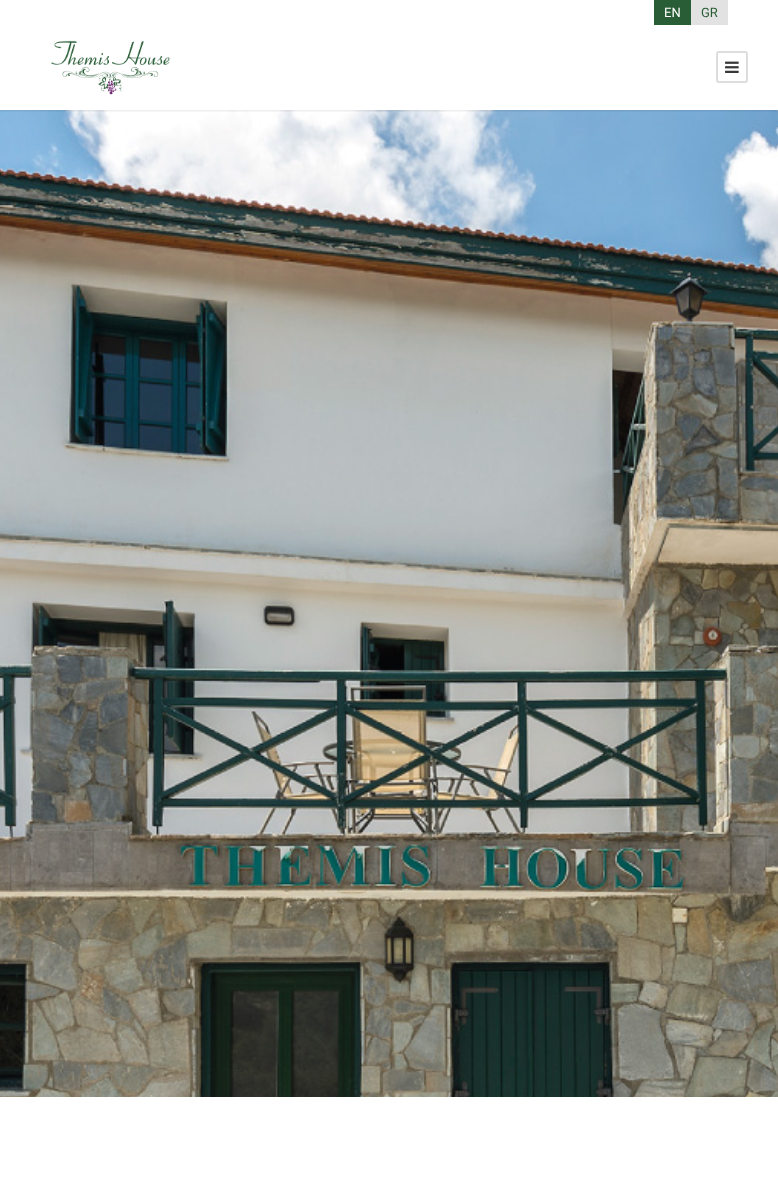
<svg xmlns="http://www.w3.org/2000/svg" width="778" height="1187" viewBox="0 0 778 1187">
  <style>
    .t1 { font: 13px Roboto; fill: #fff; }
    .t2 { font: 13px Roboto; fill: #285d35; }
  </style>
  <defs>
    <clipPath id="clip1"><rect x="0" y="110" width="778" height="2"/></clipPath>
  </defs>
  <rect width="100%" height="100%" fill="#fff"/>
  <rect x="654" y="0" width="37" height="25" fill="#285d35"/>
  <text x="664" y="17" class="t1">EN</text>
  <rect x="691" y="0" width="37" height="25" fill="#e2e2e2"/>
  <text x="701" y="17" class="t2">GR</text>
  <image x="0" y="110" width="778" height="987" href="images/3.png"/>
  <g clip-path="url(#clip1)">
    <rect x="0" y="26" width="778" height="85" fill="#0000001a" filter="blur(1px)"/>
  </g>
  <image x="51" y="40" width="119" height="55" href="images/1.png"/>
  <rect x="717" y="52" width="30" height="30" rx="2" fill="none" stroke="#ddd" stroke-width="2"/>
  <image x="725" y="61" width="14" height="12" href="images/2.png"/>
</svg>
